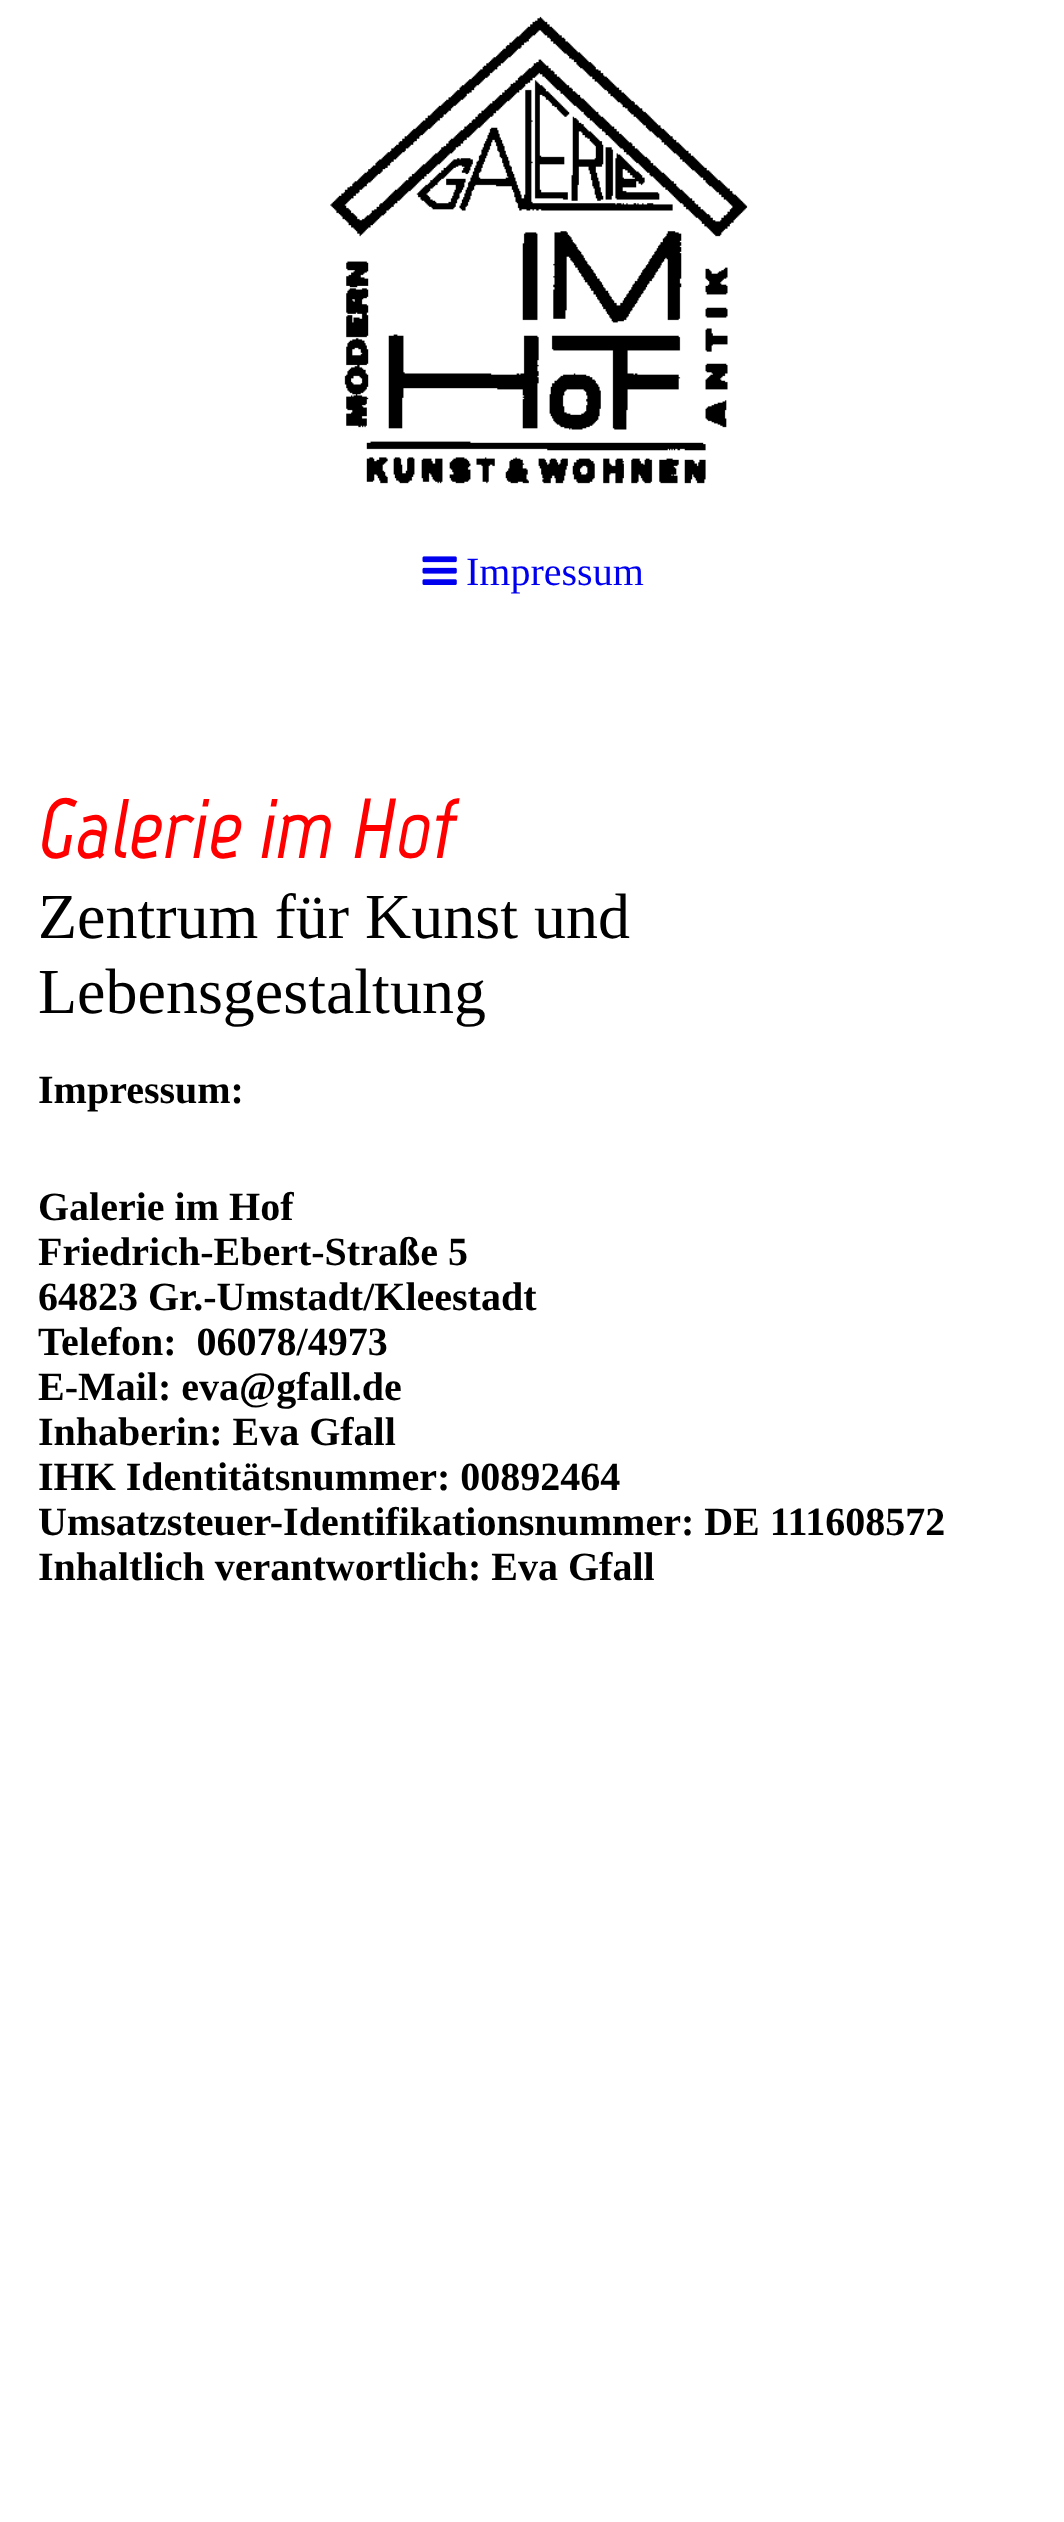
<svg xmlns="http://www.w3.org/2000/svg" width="1064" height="2522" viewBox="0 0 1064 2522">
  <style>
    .t1 { font: 40px Liberation Serif; fill: #00e; }
    .t2 { font: italic bold 85px Marvel; fill: #f00; }
    .t3 { font: 64px Liberation Serif; fill: #000; }
    .t4 { font: bold 40px Liberation Serif; fill: #000; }
  </style>
  <rect width="100%" height="100%" fill="#fff"/>
  <image x="330" y="16" width="418" height="468" href="images/1.png"/>
  <image x="422" y="556" width="35" height="29" href="images/2.png"/>
  <text x="466" y="585" class="t1">Impressum</text>
  <text x="38" y="858" class="t2">Galerie im Hof</text>
  <text x="38" y="938" class="t3">Zentrum für Kunst und</text>
  <text x="38" y="1013" class="t3">Lebensgestaltung</text>
  <text x="38" y="1103" class="t4">Impressum:</text>
  <text x="38" y="1220" class="t4">Galerie im Hof</text>
  <text x="38" y="1265" class="t4">Friedrich-Ebert-Straße 5</text>
  <text x="38" y="1310" class="t4">64823 Gr.-Umstadt/Kleestadt</text>
  <text x="38" y="1355" class="t4" xml:space="preserve">Telefon:  06078/4973</text>
  <text x="38" y="1400" class="t4">E-Mail: eva@gfall.de</text>
  <text x="38" y="1445" class="t4">Inhaberin: Eva Gfall</text>
  <text x="38" y="1490" class="t4">IHK Identitätsnummer: 00892464</text>
  <text x="38" y="1535" class="t4">Umsatzsteuer-Identifikationsnummer: DE 111608572</text>
  <text x="38" y="1580" class="t4">Inhaltlich verantwortlich: Eva Gfall</text>
</svg>
